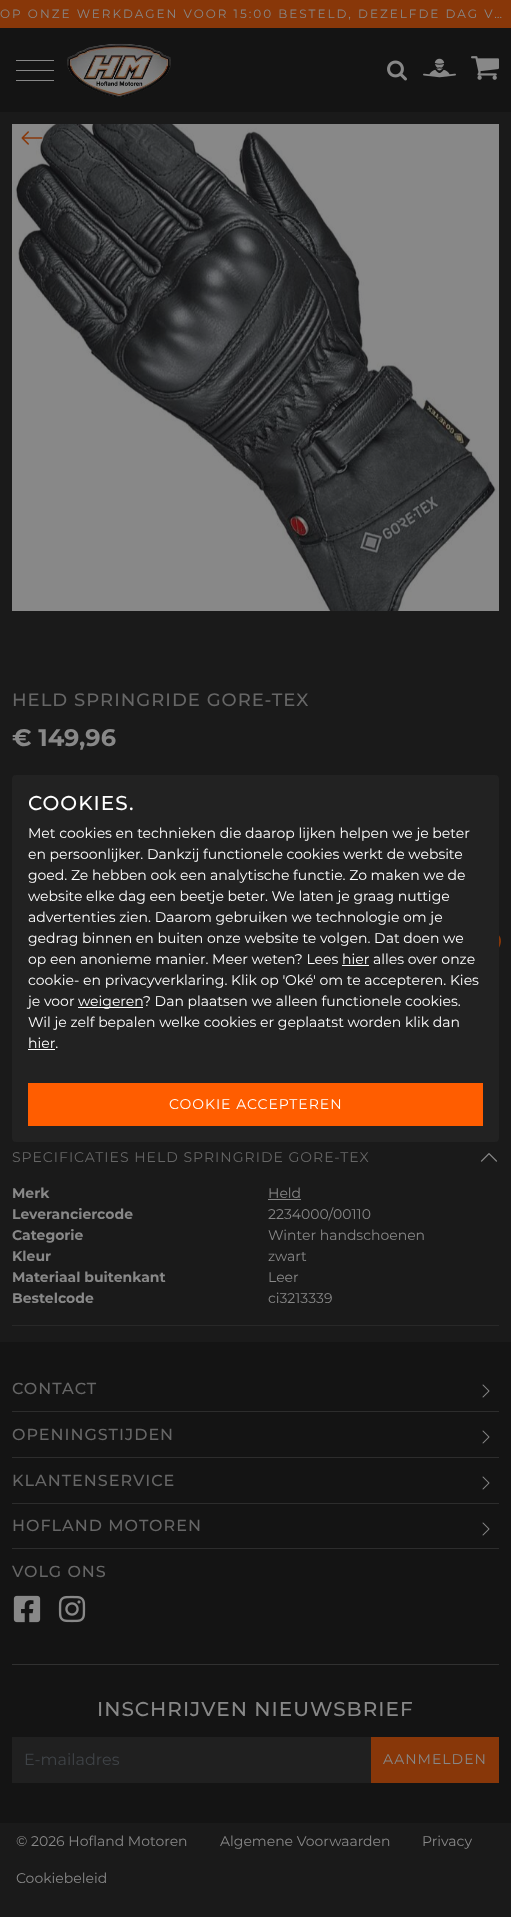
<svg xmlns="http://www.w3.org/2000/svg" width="511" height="1917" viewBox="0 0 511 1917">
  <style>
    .t1 { font: 12px Montserrat; letter-spacing: 2px; fill: #888; }
    .t2 { font: 500 18px Montserrat; letter-spacing: 1px; fill: #666; }
    .t3 { font: bold 24px Montserrat; fill: #888; }
    .t4 { font: 14px Montserrat; letter-spacing: 1px; fill: #666; }
    .t5 { font: bold 14px Montserrat; fill: #888; }
    .t6 { font: 14px Montserrat; fill: #888; }
    .t7 { font: 500 20px Montserrat; letter-spacing: 1px; fill: #fff; }
    .t8 { font: 14px Montserrat; fill: #fff; }
    .t9 { font: 14px Montserrat; letter-spacing: 1px; fill: #fff; }
    .t10 { font: 500 16px Montserrat; letter-spacing: 1px; fill: #666; }
    .t11 { font: 500 20px Montserrat; letter-spacing: 1px; fill: #888; }
    .t12 { font: 16px Montserrat; fill: #3f4347; }
    .t13 { font: 14px Montserrat; letter-spacing: 1px; fill: #888; }
  </style>
  <rect width="100%" height="100%" fill="#1a1a1a"/>
  <rect x="0" y="0" width="511" height="28" fill="#883709"/>
  <text x="0" y="18" class="t1">OP ONZE WERKDAGEN VOOR 15:00 BESTELD, DEZELFDE DAG V…</text>
  <rect x="0" y="28" width="511" height="84" fill="#141414"/>
  <rect x="16" y="60" width="38" height="1" fill="#888"/>
  <rect x="16" y="70" width="38" height="1" fill="#888"/>
  <rect x="16" y="80" width="38" height="1" fill="#888"/>
  <image x="67" y="43" width="104" height="55" href="images/1.png"/>
  <image x="387" y="60" width="20" height="21" href="images/2.png"/>
  <image x="423" y="58" width="33" height="20" href="images/3.png"/>
  <image x="471" y="56" width="28" height="24" href="images/4.png"/>
  <image x="12" y="124" width="487" height="487" href="images/6.png"/>
  <image x="21" y="131" width="22" height="14" href="images/5.png"/>
  <text x="12" y="706" class="t2">HELD SPRINGRIDE GORE-TEX</text>
  <text x="12" y="746" class="t3">€ 149,96</text>
  <image x="499" y="935" width="2" height="13" href="images/7.png"/>
  <rect x="12" y="1325" width="487" height="1" fill="#282828"/>
  <text x="12" y="1162" class="t4">SPECIFICATIES HELD SPRINGRIDE GORE-TEX</text>
  <image x="480" y="1153" width="18" height="9" href="images/8.png"/>
  <text x="12" y="1198" class="t5">Merk</text>
  <text x="268" y="1198" class="t6">Held</text>
  <rect x="268" y="1199" width="33" height="1" fill="#888"/>
  <text x="12" y="1219" class="t5">Leveranciercode</text>
  <text x="268" y="1219" class="t6">2234000/00110</text>
  <text x="12" y="1240" class="t5">Categorie</text>
  <text x="268" y="1240" class="t6">Winter handschoenen</text>
  <text x="12" y="1261" class="t5">Kleur</text>
  <text x="268" y="1261" class="t6">zwart</text>
  <text x="12" y="1282" class="t5">Materiaal buitenkant</text>
  <text x="268" y="1282" class="t6">Leer</text>
  <text x="12" y="1303" class="t5">Bestelcode</text>
  <text x="268" y="1303" class="t6">ci3213339</text>
  <rect x="12" y="775" width="487" height="367" rx="4" fill="#222"/>
  <text x="28" y="810" class="t7">COOKIES.</text>
  <text x="28" y="838" class="t8">Met cookies en technieken die daarop lijken helpen we je beter</text>
  <text x="28" y="859" class="t8">en persoonlijker. Dankzij functionele cookies werkt de website</text>
  <text x="28" y="880" class="t8">goed. Ze hebben ook een analytische functie. Zo maken we de</text>
  <text x="28" y="901" class="t8">website elke dag een beetje beter. We laten je graag nuttige</text>
  <text x="28" y="922" class="t8">advertenties zien. Daarom gebruiken we technologie om je</text>
  <text x="28" y="943" class="t8">gedrag binnen en buiten onze website te volgen. Dat doen we</text>
  <text x="28" y="964" class="t8">op een anonieme manier. Meer weten? Lees hier alles over onze</text>
  <rect x="342" y="965" width="27" height="1" fill="#fff"/>
  <text x="28" y="985" class="t8">cookie- en privacyverklaring. Klik op 'Oké' om te accepteren. Kies</text>
  <text x="28" y="1006" class="t8">je voor</text>
  <rect x="78" y="1007" width="65" height="1" fill="#fff"/>
  <text x="78" y="1006" class="t8">weigeren</text>
  <text x="143" y="1006" class="t8">? Dan plaatsen we alleen functionele cookies.</text>
  <text x="28" y="1027" class="t8">Wil je zelf bepalen welke cookies er geplaatst worden klik dan</text>
  <text x="28" y="1048" class="t8">hier.</text>
  <rect x="28" y="1049" width="27" height="1" fill="#fff"/>
  <rect x="28" y="1083" width="455" height="43" fill="#ff5d00"/>
  <text x="169" y="1109" class="t9">COOKIE ACCEPTEREN</text>
  <rect x="0" y="1342" width="511" height="481" fill="#141414"/>
  <text x="12" y="1394" class="t10">CONTACT</text>
  <image x="482" y="1384" width="8" height="14" href="images/9.png"/>
  <rect x="12" y="1411" width="487" height="1" fill="#2d2d2d"/>
  <text x="12" y="1440" class="t10">OPENINGSTIJDEN</text>
  <image x="482" y="1430" width="8" height="14" href="images/9.png"/>
  <rect x="12" y="1457" width="487" height="1" fill="#2d2d2d"/>
  <text x="12" y="1486" class="t10">KLANTENSERVICE</text>
  <image x="482" y="1476" width="8" height="14" href="images/9.png"/>
  <rect x="12" y="1503" width="487" height="1" fill="#2d2d2d"/>
  <text x="12" y="1531" class="t10">HOFLAND MOTOREN</text>
  <image x="482" y="1522" width="8" height="14" href="images/9.png"/>
  <rect x="12" y="1548" width="487" height="1" fill="#2d2d2d"/>
  <text x="12" y="1577" class="t10">VOLG ONS</text>
  <image x="13" y="1595" width="28" height="28" href="images/10.png"/>
  <image x="58" y="1595" width="28" height="28" href="images/11.png"/>
  <rect x="12" y="1664" width="487" height="1" fill="#313131"/>
  <text x="97" y="1716" class="t11">INSCHRIJVEN NIEUWSBRIEF</text>
  <rect x="12" y="1737" width="359" height="46" fill="#202020"/>
  <text x="24" y="1765" class="t12">E-mailadres</text>
  <rect x="371" y="1737" width="128" height="46" fill="#883709"/>
  <text x="383" y="1764" class="t13">AANMELDEN</text>
  <text x="16" y="1846" class="t6">© 2026 Hofland Motoren</text>
  <text x="220" y="1846" class="t6">Algemene Voorwaarden</text>
  <text x="422" y="1846" class="t6">Privacy</text>
  <text x="16" y="1883" class="t6">Cookiebeleid</text>
</svg>
